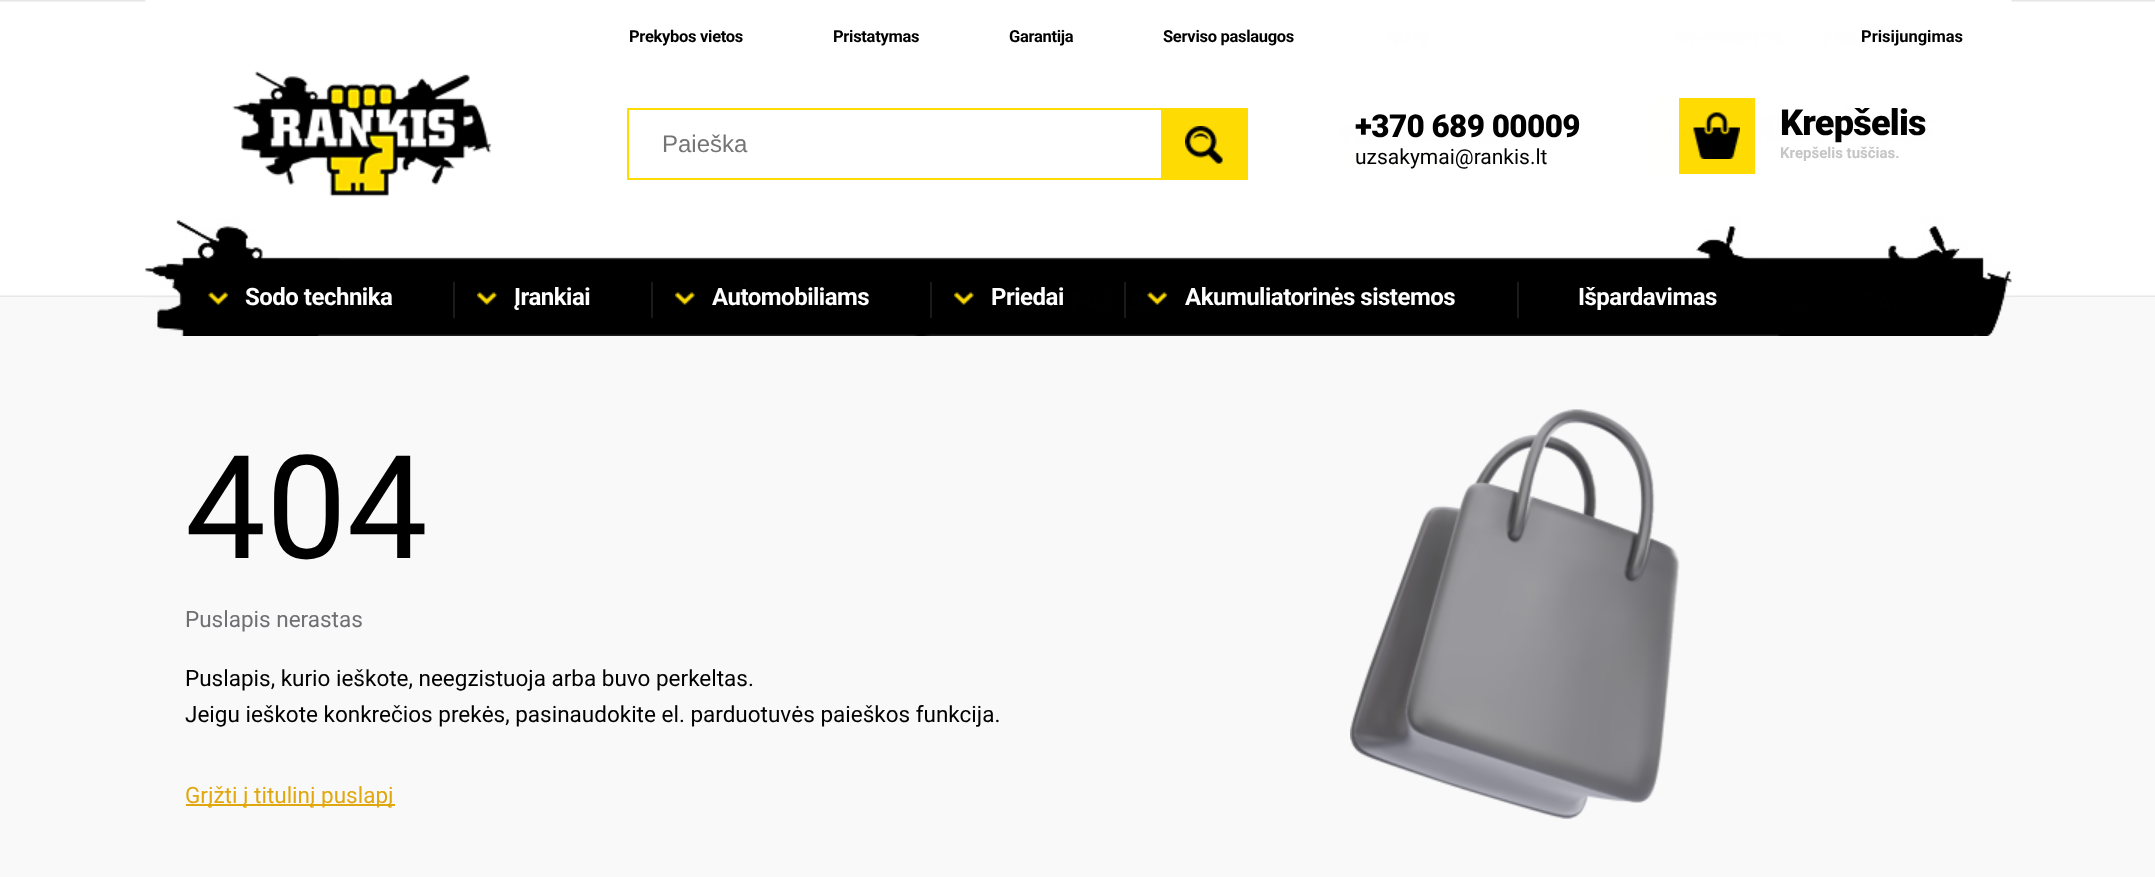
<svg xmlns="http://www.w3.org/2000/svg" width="2155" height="877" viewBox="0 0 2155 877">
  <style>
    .t1 { font: bold 16.5px Roboto; letter-spacing: -0.3px; fill: #000; }
    .t2 { font: 900 31.5px Roboto; letter-spacing: -0.6px; fill: #000; }
    .t3 { font: 21px Roboto; fill: #000; }
    .t4 { font: 24px Liberation Sans; fill: #757575; }
    .t5 { font: bold 16.5px Roboto; fill: #000; }
    .t6 { font: 900 36px Roboto; letter-spacing: -0.75px; fill: #000; }
    .t7 { font: bold 15px Roboto; fill: #c5c5c5; }
    .t8 { font: bold 24px Roboto; letter-spacing: -0.5px; fill: #fff; }
    .t9 { font: 144px Roboto; fill: #000; }
    .t10 { font: 22.5px Roboto; fill: #6f6f73; }
    .t11 { font: 22.5px Roboto; fill: #000; }
    .t12 { font: 22.5px Roboto; fill: #e0a70e; }
  </style>
  <rect width="100%" height="100%" fill="#f9f9f9"/>
  <image x="0" y="0" width="2155" height="297" href="images/1.png"/>
  <image x="145" y="0" width="1867" height="336" href="images/2.png"/>
  <image x="232" y="71" width="260" height="126" href="images/3.png"/>
  <text x="629" y="42" class="t1">Prekybos vietos</text>
  <text x="833" y="42" class="t1">Pristatymas</text>
  <text x="1009" y="42" class="t1">Garantija</text>
  <text x="1163" y="42" class="t1">Serviso paslaugos</text>
  <text x="1355" y="137" class="t2">+370 689 00009</text>
  <text x="1355" y="164" class="t3">uzsakymai@rankis.lt</text>
  <rect x="628" y="109" width="619" height="70" fill="none" stroke="#fedb02" stroke-width="2"/>
  <text x="662" y="152" class="t4">Paieška</text>
  <rect x="1161" y="110" width="85" height="68" fill="#fedb02"/>
  <image x="1185" y="126" width="38" height="38" href="images/4.png"/>
  <text x="1861" y="42" class="t5">Prisijungimas</text>
  <rect x="1682" y="112" width="23" height="20" fill="#fff"/>
  <rect x="1679" y="98" width="76" height="76" fill="#fedb02"/>
  <image x="1693" y="112" width="47" height="47" href="images/5.png"/>
  <text x="1780" y="135" class="t6">Krepšelis</text>
  <text x="1780" y="158" class="t7">Krepšelis tuščias.</text>
  <image x="208" y="292" width="20" height="13" href="images/6.png"/>
  <text x="245" y="305" class="t8">Sodo technika</text>
  <rect x="453" y="282" width="2" height="36" fill="#1a1a1a"/>
  <image x="477" y="292" width="20" height="13" href="images/7.png"/>
  <text x="514" y="305" class="t8">Įrankiai</text>
  <rect x="651" y="282" width="2" height="36" fill="#1a1a1a"/>
  <image x="675" y="292" width="20" height="13" href="images/8.png"/>
  <text x="712" y="305" class="t8">Automobiliams</text>
  <rect x="930" y="282" width="2" height="36" fill="#1a1a1a"/>
  <image x="954" y="292" width="20" height="13" href="images/7.png"/>
  <text x="991" y="305" class="t8">Priedai</text>
  <rect x="1124" y="282" width="2" height="36" fill="#1a1a1a"/>
  <image x="1147" y="292" width="20" height="13" href="images/9.png"/>
  <text x="1185" y="305" class="t8">Akumuliatorinės sistemos</text>
  <rect x="1517" y="282" width="2" height="36" fill="#1a1a1a"/>
  <text x="1578" y="305" class="t8">Išpardavimas</text>
  <image x="1350" y="409" width="330" height="410" href="images/10.png"/>
  <text x="185" y="558" class="t9">404</text>
  <text x="185" y="627" class="t10">Puslapis nerastas</text>
  <text x="185" y="686" class="t11">Puslapis, kurio ieškote, neegzistuoja arba buvo perkeltas.</text>
  <text x="185" y="722" class="t11">Jeigu ieškote konkrečios prekės, pasinaudokite el. parduotuvės paieškos funkcija.</text>
  <rect x="186" y="804" width="209" height="2" fill="#e0a70e"/>
  <text x="185" y="803" class="t12">Grįžti į titulinį puslapį</text>
</svg>
